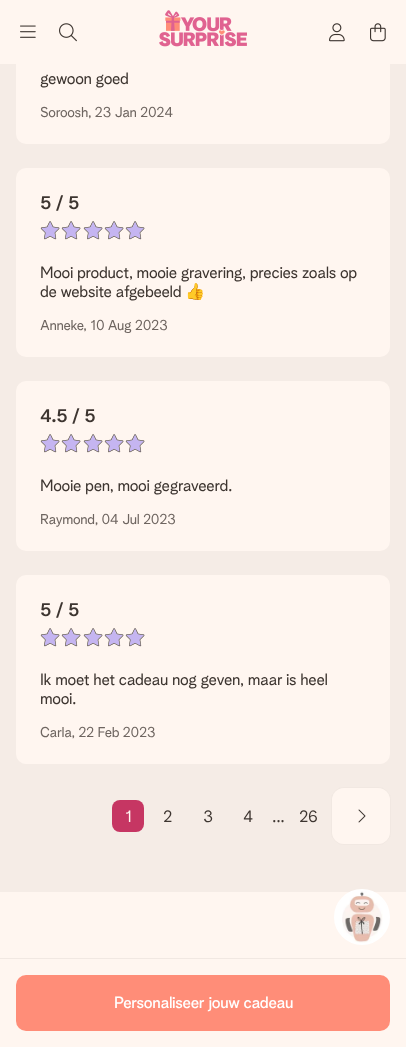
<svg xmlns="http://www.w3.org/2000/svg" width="406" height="1047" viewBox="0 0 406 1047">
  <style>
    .t1 { font: 16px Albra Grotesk; letter-spacing: -0.3px; fill: #3d3530; }
    .t2 { font: 14px Albra Grotesk; letter-spacing: -0.3px; fill: #6e6560; }
    .t3 { font: 600 18px Albra Grotesk; letter-spacing: -0.3px; fill: #3d3530; }
    .t4 { font: 16px Noto Color Emoji; letter-spacing: -0.3px; fill: #3d3530; }
    .t5 { font: 16px Albra Grotesk; letter-spacing: -0.3px; fill: #fff6f0; }
    .t6 { font: 500 16px Albra Grotesk; letter-spacing: -0.3px; fill: #fff; }
  </style>
  <rect width="100%" height="100%" fill="#fff6f0"/>
  <rect x="0" y="64" width="406" height="828" fill="#f5ece6"/>
  <rect x="16" y="-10" width="374" height="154" rx="10" fill="#fff6f0"/>
  <image x="20" y="25" width="16" height="13" href="images/1.png"/>
  <image x="59" y="23" width="18" height="19" href="images/2.png"/>
  <image x="159" y="10" width="88" height="37" href="images/3.png"/>
  <image x="329" y="23" width="16" height="19" href="images/4.png"/>
  <image x="370" y="23" width="16" height="19" href="images/5.png"/>
  <text x="40" y="84" class="t1">gewoon goed</text>
  <text x="40" y="117" class="t2">Soroosh, 23 Jan 2024</text>
  <rect x="16" y="168" width="374" height="189" rx="10" fill="#fff6f0"/>
  <text x="40" y="209" class="t3">5 / 5</text>
  <image x="41" y="222" width="18" height="17" href="images/7.png"/>
  <image x="40" y="221" width="20" height="19" href="images/6.png"/>
  <image x="62" y="222" width="18" height="17" href="images/7.png"/>
  <image x="61" y="221" width="20" height="19" href="images/6.png"/>
  <image x="84" y="222" width="18" height="17" href="images/7.png"/>
  <image x="83" y="221" width="20" height="19" href="images/6.png"/>
  <image x="105" y="222" width="18" height="17" href="images/7.png"/>
  <image x="104" y="221" width="20" height="19" href="images/6.png"/>
  <image x="126" y="222" width="18" height="17" href="images/7.png"/>
  <image x="125" y="221" width="20" height="19" href="images/6.png"/>
  <text x="40" y="278" class="t1">Mooi product, mooie gravering, precies zoals op</text>
  <text x="40" y="297" class="t1">de website afgebeeld</text>
  <text x="185" y="297" class="t4">👍</text>
  <text x="40" y="330" class="t2">Anneke, 10 Aug 2023</text>
  <rect x="16" y="381" width="374" height="170" rx="10" fill="#fff6f0"/>
  <text x="40" y="422" class="t3">4.5 / 5</text>
  <image x="41" y="435" width="18" height="17" href="images/7.png"/>
  <image x="40" y="434" width="20" height="19" href="images/6.png"/>
  <image x="62" y="435" width="18" height="17" href="images/7.png"/>
  <image x="61" y="434" width="20" height="19" href="images/6.png"/>
  <image x="84" y="435" width="18" height="17" href="images/7.png"/>
  <image x="83" y="434" width="20" height="19" href="images/6.png"/>
  <image x="105" y="435" width="18" height="17" href="images/7.png"/>
  <image x="104" y="434" width="20" height="19" href="images/6.png"/>
  <image x="126" y="435" width="18" height="17" href="images/7.png"/>
  <image x="125" y="434" width="20" height="19" href="images/6.png"/>
  <text x="40" y="491" class="t1">Mooie pen, mooi gegraveerd.</text>
  <text x="40" y="524" class="t2">Raymond, 04 Jul 2023</text>
  <rect x="16" y="575" width="374" height="189" rx="10" fill="#fff6f0"/>
  <text x="40" y="616" class="t3">5 / 5</text>
  <image x="41" y="629" width="18" height="17" href="images/7.png"/>
  <image x="40" y="628" width="20" height="19" href="images/6.png"/>
  <image x="62" y="629" width="18" height="17" href="images/7.png"/>
  <image x="61" y="628" width="20" height="19" href="images/6.png"/>
  <image x="84" y="629" width="18" height="17" href="images/7.png"/>
  <image x="83" y="628" width="20" height="19" href="images/6.png"/>
  <image x="105" y="629" width="18" height="17" href="images/7.png"/>
  <image x="104" y="628" width="20" height="19" href="images/6.png"/>
  <image x="126" y="629" width="18" height="17" href="images/7.png"/>
  <image x="125" y="628" width="20" height="19" href="images/6.png"/>
  <text x="40" y="685" class="t1">Ik moet het cadeau nog geven, maar is heel</text>
  <text x="40" y="704" class="t1">mooi.</text>
  <text x="40" y="737" class="t2">Carla, 22 Feb 2023</text>
  <rect x="112" y="800" width="32" height="32" rx="8" fill="#c63663"/>
  <text x="125" y="822" class="t5">1</text>
  <text x="163" y="822" class="t1">2</text>
  <text x="203" y="822" class="t1">3</text>
  <text x="243" y="822" class="t1">4</text>
  <text x="272" y="822" class="t1">...</text>
  <text x="299" y="822" class="t1">26</text>
  <rect x="331.5" y="787.5" width="59" height="57" rx="12.5" fill="none" stroke="#f1e8e2"/>
  <rect x="332" y="788" width="58" height="56" rx="12" fill="#fff6f0"/>
  <image x="358" y="809" width="8" height="14" href="images/8.png"/>
  <rect x="0" y="958" width="406" height="1" fill="#f1e8e2"/>
  <rect x="16" y="975" width="374" height="56" rx="10" fill="#ff8d78"/>
  <text x="114" y="1008" class="t6">Personaliseer jouw cadeau</text>
  <circle cx="362" cy="917" r="27" fill="#fff" stroke="#fff" stroke-width="2"/>
  <image x="342" y="891" width="41" height="52" href="images/9.png"/>
</svg>
